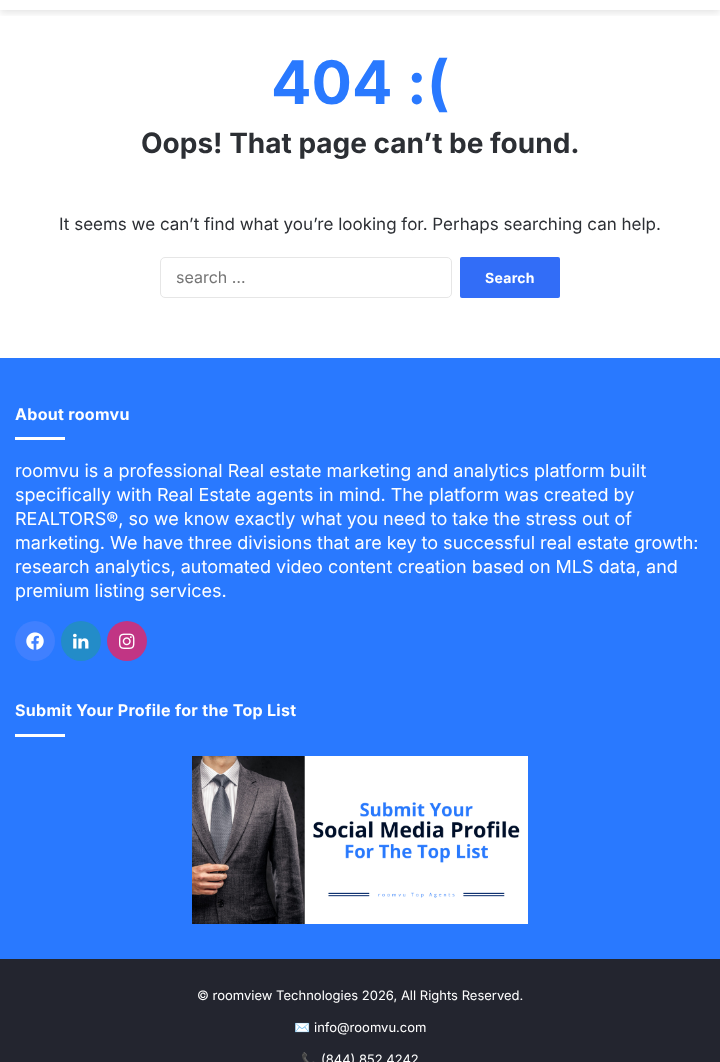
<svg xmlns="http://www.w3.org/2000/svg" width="720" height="1062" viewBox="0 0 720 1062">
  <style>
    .t1 { font: bold 60px Inter; fill: #2979ff; }
    .t2 { font: bold 28px Inter; fill: #2c2f34; }
    .t3 { font: 17px Inter; fill: #2c2f34; }
    .t4 { font: 16px Inter; fill: #757575; }
    .t5 { font: bold 14px Inter; letter-spacing: 0.3px; fill: #fff; }
    .t6 { font: bold 16px Inter; letter-spacing: 0.3px; fill: #fff; }
    .t7 { font: 18px Inter; fill: #fff; }
    .t8 { font: 13px Inter; fill: #fff; }
    .t9 { font: 13px Noto Color Emoji; fill: #fff; }
  </style>
  <defs>
    <clipPath id="clip1"><rect x="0" y="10" width="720" height="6"/></clipPath>
  </defs>
  <rect width="100%" height="100%" fill="#fff"/>
  <g clip-path="url(#clip1)">
    <rect x="0" y="-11" width="720" height="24" fill="#0000001a" filter="blur(3.5px)"/>
  </g>
  <text x="271" y="104" class="t1">404 :(</text>
  <text x="141" y="153" class="t2">Oops! That page can’t be found.</text>
  <text x="59" y="230" class="t3">It seems we can’t find what you’re looking for. Perhaps searching can help.</text>
  <rect x="160.5" y="257.5" width="291" height="40" rx="4.5" fill="none" stroke="#e6e6e6"/>
  <text x="176" y="283" class="t4">search …</text>
  <rect x="460" y="257" width="100" height="41" rx="2" fill="#326df7"/>
  <text x="485" y="283" class="t5">Search</text>
  <rect x="0" y="358" width="720" height="601" fill="#2979ff"/>
  <text x="15" y="420" class="t6">About roomvu</text>
  <rect x="15" y="437" width="50" height="3" fill="#fff"/>
  <text x="15" y="477" class="t7">roomvu is a professional Real estate marketing and analytics platform built</text>
  <text x="15" y="501" class="t7">specifically with Real Estate agents in mind. The platform was created by</text>
  <text x="15" y="525" class="t7">REALTORS®, so we know exactly what you need to take the stress out of</text>
  <text x="15" y="549" class="t7">marketing. We have three divisions that are key to successful real estate growth:</text>
  <text x="15" y="573" class="t7">research analytics, automated video content creation based on MLS data, and</text>
  <text x="15" y="597" class="t7">premium listing services.</text>
  <circle cx="35" cy="641" r="20" fill="#4080ff"/>
  <image x="26" y="632" width="18" height="18" href="images/1.png"/>
  <circle cx="81" cy="641" r="20" fill="#238cc8"/>
  <image x="73" y="633" width="16" height="16" href="images/2.png"/>
  <circle cx="127" cy="641" r="20" fill="#c13584"/>
  <image x="119" y="633" width="16" height="16" href="images/3.png"/>
  <text x="15" y="716" class="t6">Submit Your Profile for the Top List</text>
  <rect x="15" y="734" width="50" height="3" fill="#fff"/>
  <image x="192" y="756" width="336" height="168" href="images/4.png"/>
  <rect x="0" y="959" width="720" height="103" fill="#23252f"/>
  <text x="197" y="1000" class="t8">© roomview Technologies 2026, All Rights Reserved.</text>
  <text x="294" y="1032" class="t9">✉️</text>
  <text x="314" y="1032" class="t8">info@roomvu.com</text>
  <text x="301" y="1064" class="t9">📞</text>
  <text x="321" y="1064" class="t8">(844) 852 4242</text>
</svg>
